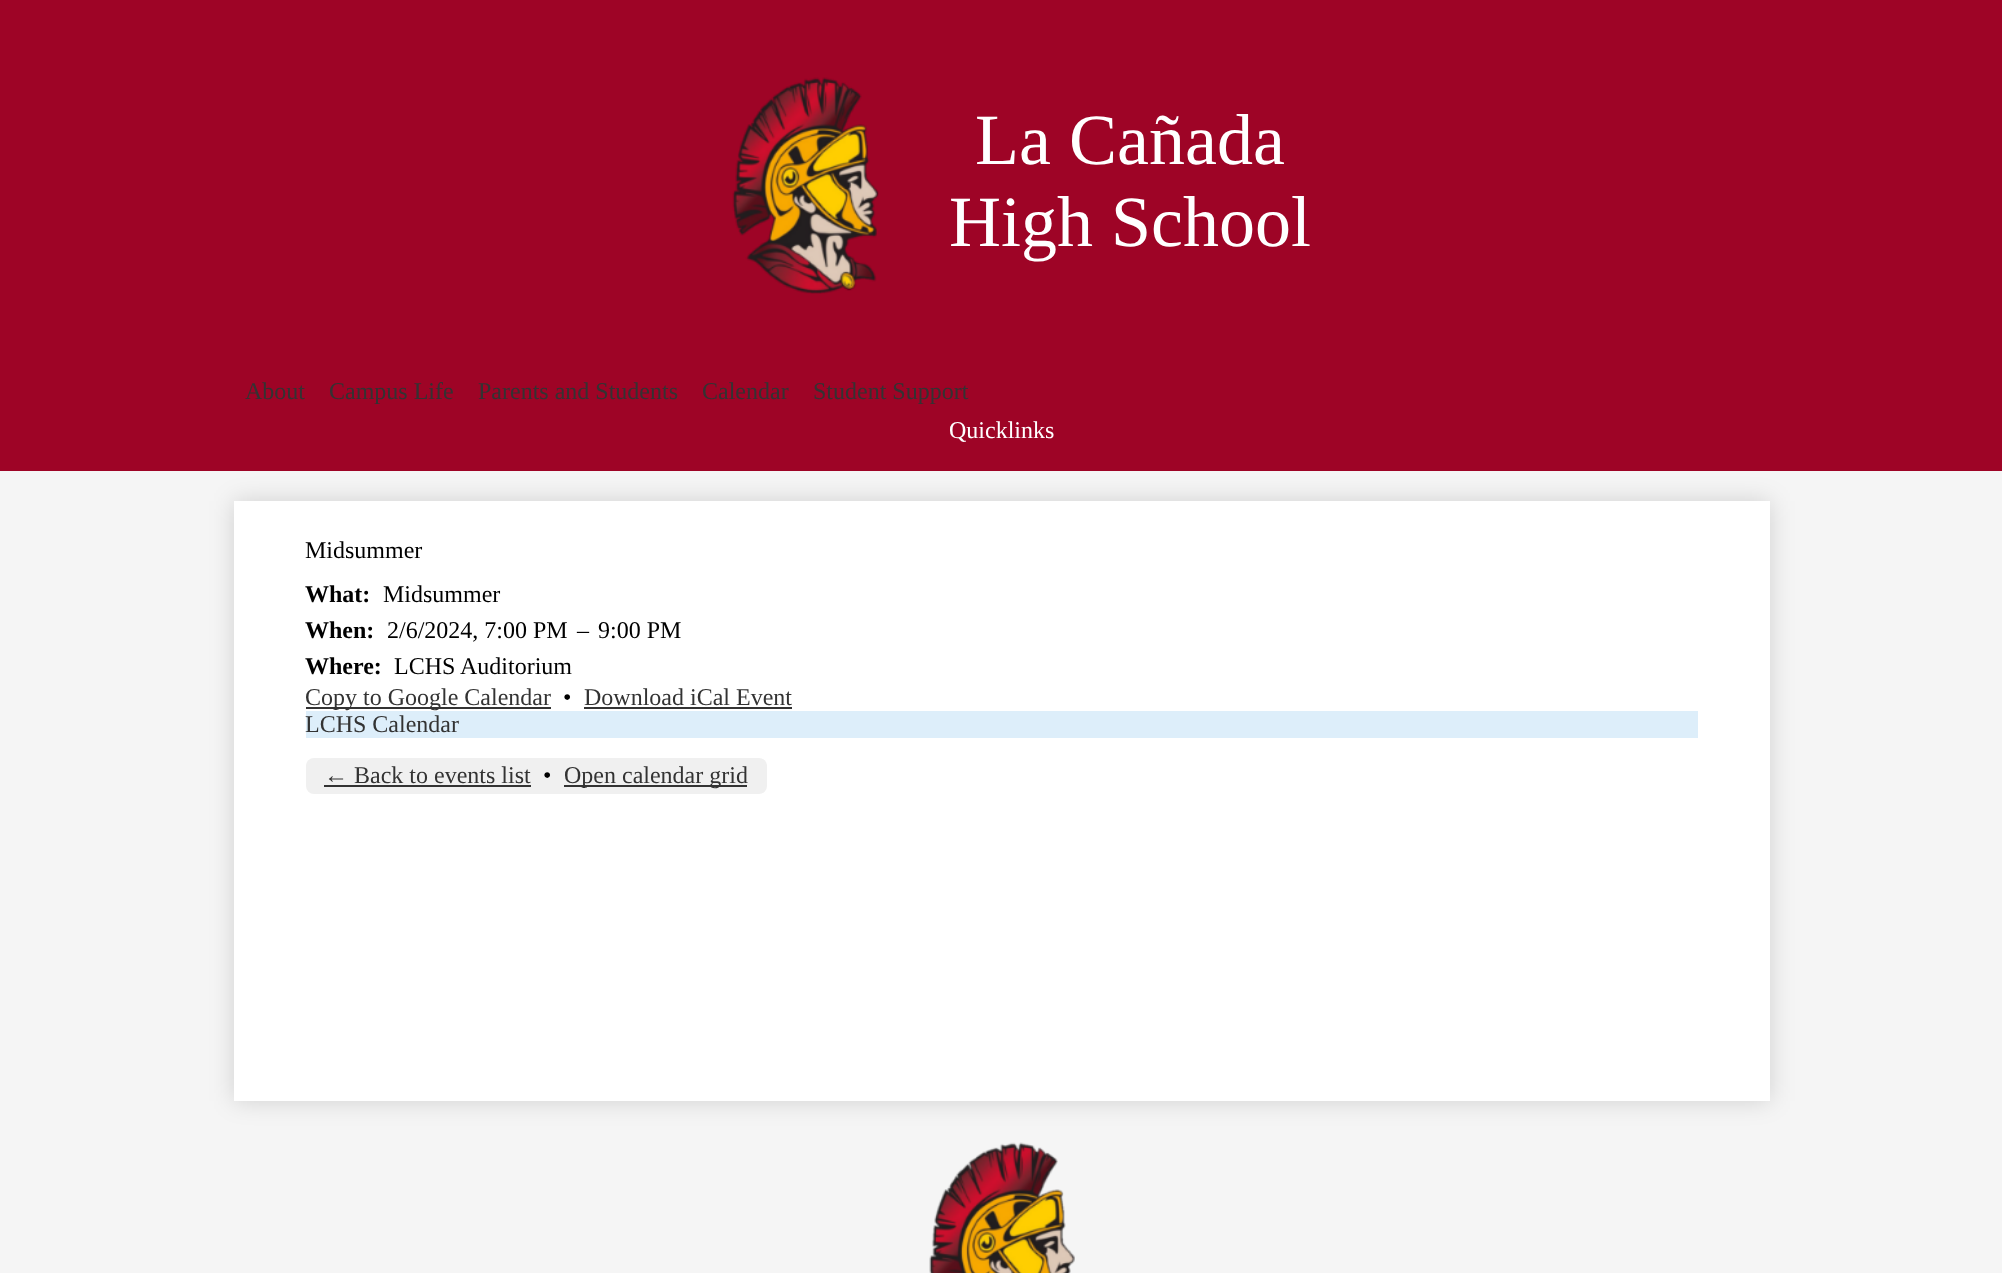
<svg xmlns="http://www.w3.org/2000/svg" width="2002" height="1273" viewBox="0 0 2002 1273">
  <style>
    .t1 { font: 72px Liberation Serif; fill: #fff; }
    .t2 { font: 24px Liberation Serif; fill: #333; }
    .t3 { font: 24px Liberation Serif; fill: #fff; }
    .t4 { font: 24px Liberation Serif; fill: #000; }
    .t5 { font: bold 24px Liberation Serif; fill: #000; }
  </style>
  <rect width="100%" height="100%" fill="#f5f5f5"/>
  <rect x="234" y="501" width="1536" height="600" fill="#00000026" filter="blur(12px)"/>
  <rect x="0" y="0" width="2002" height="471" fill="#9e0426"/>
  <image x="732" y="77" width="147" height="217" href="images/1.png"/>
  <text x="975" y="164" class="t1">La Cañada</text>
  <text x="949" y="246" class="t1">High School</text>
  <text x="245" y="399" class="t2">About</text>
  <text x="329" y="399" class="t2">Campus Life</text>
  <text x="478" y="399" class="t2">Parents and Students</text>
  <text x="702" y="399" class="t2">Calendar</text>
  <text x="813" y="399" class="t2">Student Support</text>
  <text x="949" y="438" class="t3">Quicklinks</text>
  <rect x="234" y="501" width="1536" height="600" fill="#fff"/>
  <text x="305" y="558" class="t4">Midsummer</text>
  <text x="305" y="602" class="t5">What:</text>
  <text x="383" y="602" class="t4">Midsummer</text>
  <text x="305" y="638" class="t5">When:</text>
  <text x="387" y="638" class="t4">2/6/2024, 7:00 PM</text>
  <text x="577" y="638" class="t4">–</text>
  <text x="598" y="638" class="t4">9:00 PM</text>
  <text x="305" y="674" class="t5">Where:</text>
  <text x="394" y="674" class="t4">LCHS Auditorium</text>
  <rect x="306" y="707" width="245" height="2" fill="#333"/>
  <text x="305" y="705" class="t2">Copy to Google Calendar</text>
  <text x="563" y="705" class="t4">•</text>
  <text x="584" y="705" class="t2">Download iCal Event</text>
  <rect x="584" y="707" width="208" height="2" fill="#333"/>
  <rect x="306" y="711" width="1392" height="27" fill="#ddeefa"/>
  <text x="305" y="732" class="t2">LCHS Calendar</text>
  <rect x="306" y="758" width="461" height="36" rx="8" fill="#f0f0f0"/>
  <text x="324" y="783" class="t2">← Back to events list</text>
  <rect x="324" y="785" width="207" height="2" fill="#333"/>
  <text x="543" y="783" class="t4">•</text>
  <rect x="564" y="785" width="183" height="2" fill="#333"/>
  <text x="564" y="783" class="t2">Open calendar grid</text>
  <image x="929" y="1142" width="146" height="131" href="images/2.png"/>
</svg>
